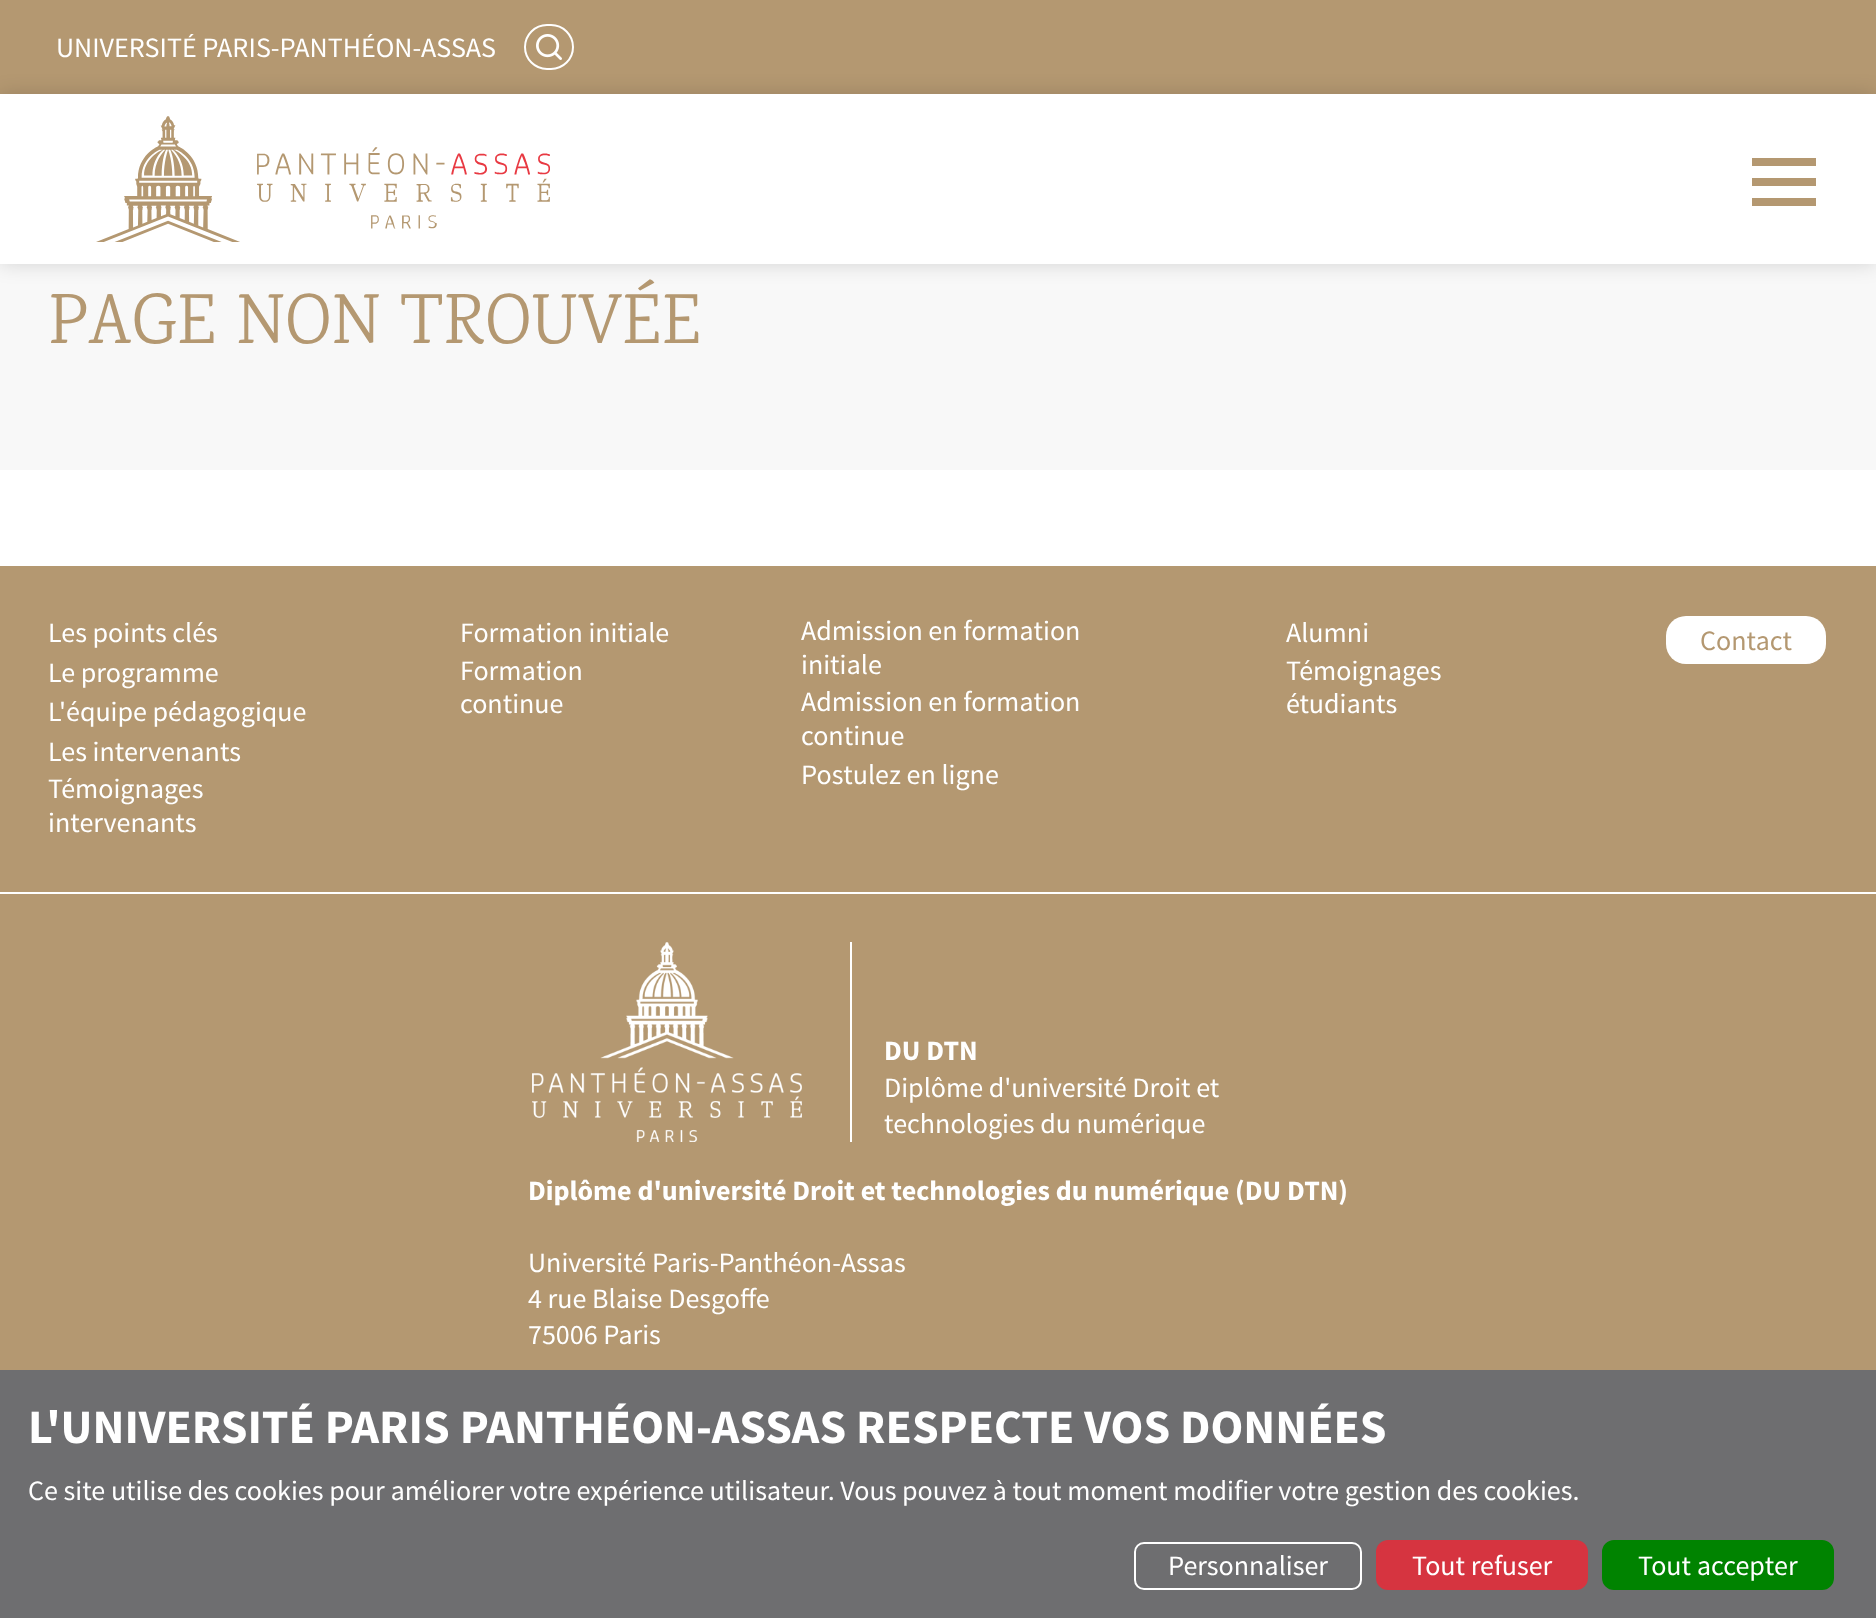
<svg xmlns="http://www.w3.org/2000/svg" width="1876" height="1618" viewBox="0 0 1876 1618">
  <style>
    .t1 { font: 28px Source Sans Pro; fill: #fff; }
    .t2 { font: 72px Karma; fill: #b49871; }
    .t3 { font: 28px Source Sans Pro; fill: #b49871; }
    .t4 { font: bold 28px Source Sans Pro; fill: #fff; }
    .t5 { font: bold 48px Source Sans Pro; fill: #fff; }
  </style>
  <rect width="100%" height="100%" fill="#fff"/>
  <rect x="0" y="0" width="1876" height="94" fill="#b49871"/>
  <text x="56" y="57" class="t1">UNIVERSITÉ PARIS-PANTHÉON-ASSAS</text>
  <rect x="525" y="25" width="48" height="44" rx="22" fill="none" stroke="#fff" stroke-width="2"/>
  <image x="536" y="34" width="26" height="26" href="images/1.png"/>
  <rect x="0" y="264" width="1876" height="206" fill="#f8f8f8"/>
  <rect x="0" y="94" width="1876" height="170" fill="#00000026" filter="blur(10px)"/>
  <rect x="0" y="94" width="1876" height="170" fill="#fff"/>
  <image x="96" y="116" width="454" height="126" href="images/2.png"/>
  <rect x="1752" y="158" width="64" height="8" fill="#b49871"/>
  <rect x="1752" y="178" width="64" height="8" fill="#b49871"/>
  <rect x="1752" y="198" width="64" height="8" fill="#b49871"/>
  <text x="48" y="343" class="t2">PAGE NON TROUVÉE</text>
  <rect x="0" y="566" width="1876" height="804" fill="#b49871"/>
  <rect x="0" y="892" width="1876" height="2" fill="#fff"/>
  <text x="48" y="642" class="t1">Les points clés</text>
  <text x="48" y="682" class="t1">Le programme</text>
  <text x="48" y="721" class="t1">L'équipe pédagogique</text>
  <text x="48" y="761" class="t1">Les intervenants</text>
  <text x="48" y="798" class="t1">Témoignages</text>
  <text x="48" y="832" class="t1">intervenants</text>
  <text x="460" y="642" class="t1">Formation initiale</text>
  <text x="460" y="680" class="t1">Formation</text>
  <text x="460" y="713" class="t1">continue</text>
  <text x="801" y="640" class="t1">Admission en formation</text>
  <text x="801" y="674" class="t1">initiale</text>
  <text x="801" y="711" class="t1">Admission en formation</text>
  <text x="801" y="745" class="t1">continue</text>
  <text x="801" y="784" class="t1">Postulez en ligne</text>
  <text x="1286" y="642" class="t1">Alumni</text>
  <text x="1286" y="680" class="t1">Témoignages</text>
  <text x="1286" y="713" class="t1">étudiants</text>
  <rect x="1666" y="616" width="160" height="48" rx="20" fill="#fff"/>
  <text x="1700" y="650" class="t3">Contact</text>
  <rect x="850" y="942" width="2" height="200" fill="#fff"/>
  <image x="532" y="942" width="270" height="200" href="images/3.png"/>
  <text x="884" y="1060" class="t4">DU DTN</text>
  <text x="884" y="1097" class="t1">Diplôme d'université Droit et</text>
  <text x="884" y="1133" class="t1">technologies du numérique</text>
  <text x="528" y="1200" class="t4">Diplôme d'université Droit et technologies du numérique (DU DTN)</text>
  <text x="528" y="1272" class="t1">Université Paris-Panthéon-Assas</text>
  <text x="528" y="1308" class="t1">4 rue Blaise Desgoffe</text>
  <text x="528" y="1344" class="t1">75006 Paris</text>
  <rect x="0" y="1370" width="1876" height="248" fill="#6e6e70"/>
  <text x="28" y="1443" class="t5">L'UNIVERSITÉ PARIS PANTHÉON-ASSAS RESPECTE VOS DONNÉES</text>
  <text x="28" y="1500" class="t1">Ce site utilise des cookies pour améliorer votre expérience utilisateur. Vous pouvez à tout moment modifier votre gestion des cookies.</text>
  <rect x="1135" y="1543" width="226" height="46" rx="9" fill="none" stroke="#fff" stroke-width="2"/>
  <text x="1168" y="1575" class="t1">Personnaliser</text>
  <rect x="1378" y="1542" width="208" height="46" rx="10" fill="#d63440" stroke="#d63440" stroke-width="4"/>
  <text x="1412" y="1575" class="t1">Tout refuser</text>
  <rect x="1604" y="1542" width="228" height="46" rx="10" fill="#008300" stroke="#008300" stroke-width="4"/>
  <text x="1638" y="1575" class="t1">Tout accepter</text>
</svg>
